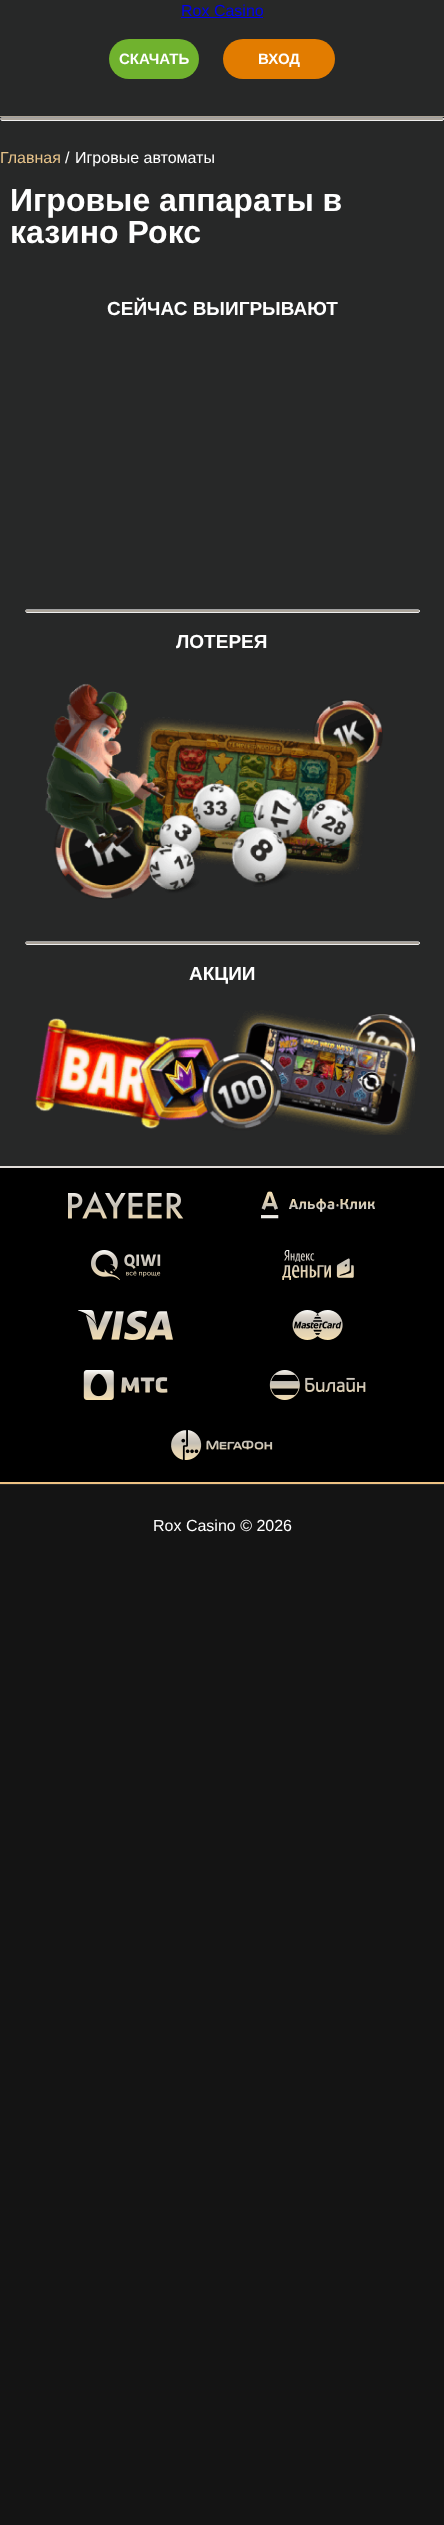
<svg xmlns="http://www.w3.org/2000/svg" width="444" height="2525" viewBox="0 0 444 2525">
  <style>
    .t1 { font: 16px Liberation Sans; fill: #00e; }
    .t2 { font: bold 15px Liberation Sans; fill: #fff; }
    .t3 { font: 16px Liberation Sans; fill: #e7c38a; }
    .t4 { font: 16px Liberation Sans; fill: #fff; }
    .t5 { font: bold 32px Liberation Sans; fill: #fff; }
    .t6 { font: bold 19px Liberation Sans; fill: #fff; }
  </style>
  <defs>
    <clipPath id="clip1"><rect x="0" y="117" width="444" height="4" rx="2"/></clipPath>
    <clipPath id="clip2"><rect x="25" y="609" width="395" height="4" rx="2"/></clipPath>
    <clipPath id="clip3"><rect x="25" y="941" width="395" height="4" rx="2"/></clipPath>
    <linearGradient id="g1" gradientUnits="userSpaceOnUse" x1="222" y1="1166" x2="222" y2="1484"><stop offset="0" stop-color="#e3deda"/><stop offset="0.42" stop-color="#aaa399"/><stop offset="0.55" stop-color="#aaa399"/><stop offset="1" stop-color="#efc384"/></linearGradient>
  </defs>
  <rect width="100%" height="100%" fill="#141414"/>
  <rect x="0" y="0" width="444" height="116" fill="#272828"/>
  <rect x="0" y="116" width="444" height="1" fill="#ada496"/>
  <text x="181" y="16" class="t1">Rox Casino</text>
  <rect x="181" y="17" width="82" height="1" fill="#00e"/>
  <rect x="109" y="39" width="90" height="40" rx="20" fill="#70b22e"/>
  <text x="119" y="64" class="t2">СКАЧАТЬ</text>
  <rect x="223" y="39" width="112" height="40" rx="20" fill="#e27c00"/>
  <text x="258" y="64" class="t2">ВХОД</text>
  <rect x="0" y="117" width="444" height="1049" fill="#272828"/>
  <g clip-path="url(#clip1)">
    <rect x="0" y="118" width="444" height="2" fill="#aaa399"/>
  </g>
  <path d="M443 118C444 119 443.5 120.5 442 120.5H2L1 120" fill="none" stroke="#eee"/>
  <path d="M1 120C0 119 .5 117.5 2 117.5H442L443 118" fill="none" stroke="#9f9f9f"/>
  <text x="0" y="163" class="t3">Главная</text>
  <text x="65" y="163" class="t4">/</text>
  <text x="75" y="163" class="t4">Игровые автоматы</text>
  <text x="10" y="211" class="t5">Игровые аппараты в</text>
  <text x="10" y="243" class="t5">казино Рокс</text>
  <text x="107" y="315" class="t6">СЕЙЧАС ВЫИГРЫВАЮТ</text>
  <g clip-path="url(#clip2)">
    <rect x="25" y="610" width="395" height="2" fill="#aaa399"/>
  </g>
  <path d="M419 610C420 611 419.5 612.5 418 612.5H27L26 612" fill="none" stroke="#eee"/>
  <path d="M26 612C25 611 25.5 609.5 27 609.5H418L419 610" fill="none" stroke="#9f9f9f"/>
  <text x="176" y="648" class="t6">ЛОТЕРЕЯ</text>
  <image x="45" y="683" width="338" height="217" href="images/1.png"/>
  <g clip-path="url(#clip3)">
    <rect x="25" y="942" width="395" height="2" fill="#aaa399"/>
  </g>
  <path d="M419 942C420 943 419.5 944.5 418 944.5H27L26 944" fill="none" stroke="#eee"/>
  <path d="M26 944C25 943 25.5 941.5 27 941.5H418L419 942" fill="none" stroke="#9f9f9f"/>
  <text x="189" y="980" class="t6">АКЦИИ</text>
  <image x="35" y="1010" width="385" height="125" href="images/2.png"/>
  <rect x="0" y="1166" width="444" height="318" fill="url(#g1)"/>
  <rect x="0" y="1168" width="444" height="314" fill="#000"/>
  <image x="68" y="1191" width="116" height="28" href="images/3.png"/>
  <image x="261" y="1191" width="114" height="28" href="images/4.png"/>
  <image x="91" y="1250" width="70" height="30" href="images/5.png"/>
  <image x="282" y="1250" width="72" height="30" href="images/6.png"/>
  <image x="78" y="1310" width="95" height="30" href="images/7.png"/>
  <image x="292" y="1310" width="51" height="30" href="images/8.png"/>
  <image x="83" y="1370" width="85" height="30" href="images/9.png"/>
  <image x="269" y="1370" width="97" height="30" href="images/10.png"/>
  <image x="171" y="1430" width="102" height="30" href="images/11.png"/>
  <rect x="0" y="1484" width="444" height="1" fill="#272828"/>
  <text x="153" y="1531" class="t4">Rox Casino © 2026</text>
</svg>
